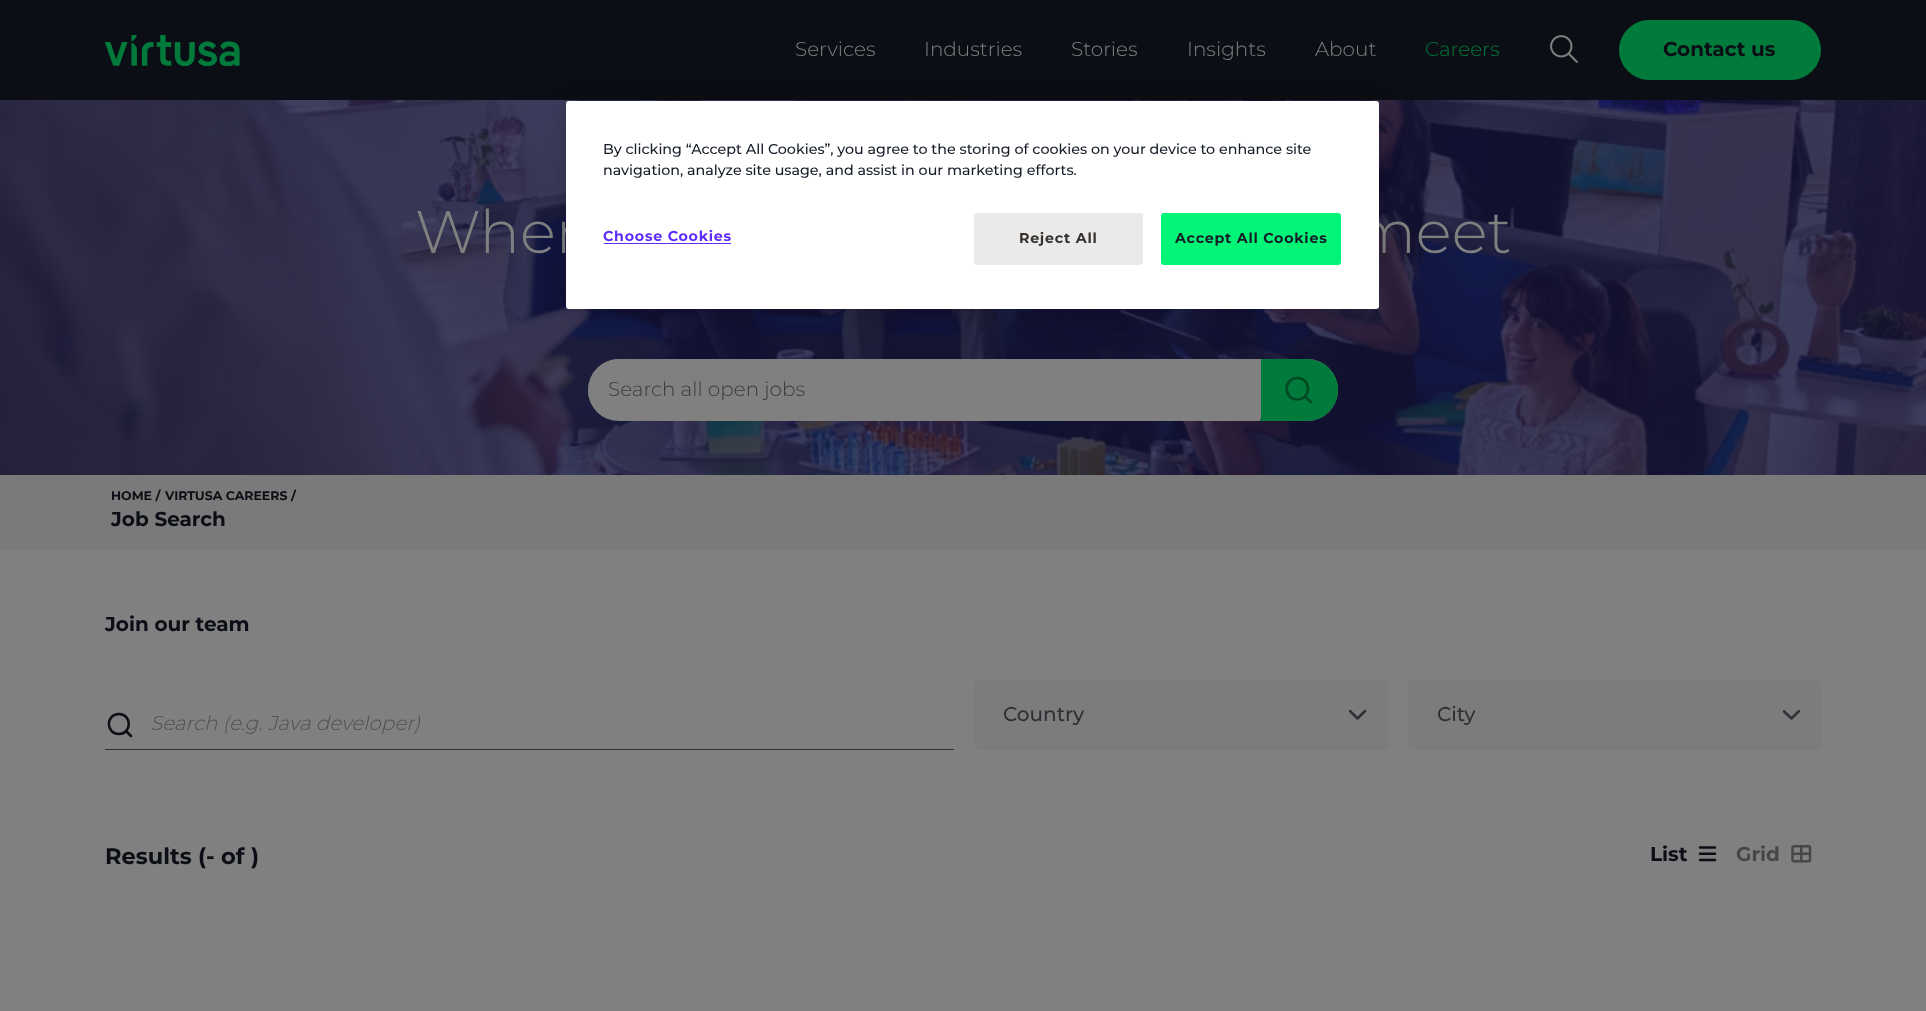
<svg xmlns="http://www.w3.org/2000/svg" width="1926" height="1011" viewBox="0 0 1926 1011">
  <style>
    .t1 { font: 100 20px 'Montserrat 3'; fill: #808080; }
    .t2 { font: 100 20px 'Montserrat 3'; fill: #017b3b; }
    .t3 { font: 100 20px Montserrat; fill: #0b0e14; }
    .t4 { font: 100 60px 'Montserrat 3'; fill: #808080; }
    .t5 { font: 100 20px 'Montserrat 3'; fill: #363b3f; }
    .t6 { font: 100 12.5px Montserrat; fill: #0b0e14; }
    .t7 { font: italic 100 20px Montserrat; fill: #4f5053; }
    .t8 { font: 100 20px 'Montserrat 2'; fill: #2e3035; }
    .t9 { font: 100 22.5px Montserrat; fill: #0b0e14; }
    .t10 { font: 100 20px Montserrat; fill: #45474a; }
    .t11 { font: 100 14.25px 'Montserrat 2'; fill: #151c28; }
    .t12 { font: 100 14.25px Montserrat; letter-spacing: 0.75px; fill: #5f2cff; }
    .t13 { font: 100 14.25px Montserrat; letter-spacing: 0.75px; fill: #36312d; }
    .t14 { font: 100 14.25px Montserrat; letter-spacing: 0.75px; fill: #151c28; }
  </style>
  <defs>
    <clipPath id="clip1"><rect x="588" y="359" width="750" height="62" rx="31"/></clipPath>
    <clipPath id="clip2"><rect x="1349" y="710" width="19" height="10"/></clipPath>
    <clipPath id="clip3"><rect x="1783" y="710" width="18" height="10"/></clipPath>
  </defs>
  <rect width="100%" height="100%" fill="#808080"/>
  <rect x="0" y="0" width="1926" height="100" fill="#0b0e14"/>
  <image x="104" y="35" width="136" height="31" href="images/1.png"/>
  <text x="795" y="56" class="t1">Services</text>
  <text x="924" y="56" class="t1">Industries</text>
  <text x="1071" y="56" class="t1">Stories</text>
  <text x="1187" y="56" class="t1">Insights</text>
  <text x="1315" y="56" class="t1">About</text>
  <text x="1425" y="56" class="t2">Careers</text>
  <image x="1550" y="35" width="28" height="28" href="images/2.png"/>
  <rect x="1619.5" y="20.5" width="201" height="59" rx="29.5" fill="#017b3b" stroke="#017b3b"/>
  <text x="1663" y="56" class="t3">Contact us</text>
  <image x="0" y="100" width="1926" height="375" href="images/3.png"/>
  <text x="415" y="253" class="t4">Wher</text>
  <text x="1352" y="253" class="t4">meet</text>
  <rect x="588" y="359" width="750" height="62" rx="31" fill="#808080"/>
  <path d="M1260 359H1307C1324 359 1338 373 1338 390C1338 407 1324 421 1307 421H1260Z" fill="#017b3b"/>
  <g clip-path="url(#clip1)">
    <path d="M619 359H1261V419H593C590 419 588 417 588 414V390C588 373 602 359 619 359Z" fill="#808080"/>
  </g>
  <text x="608" y="396" class="t5">Search all open jobs</text>
  <path d="M1297.5 399.5C1311.5 399.5 1311.5 378 1297.5 378C1283 378 1283 399.5 1297.5 399.5ZM1311 402L1305 396.5" fill="none" stroke="#014a24" stroke-width="2.7" stroke-linecap="round" stroke-linejoin="round"/>
  <rect x="0" y="475" width="1926" height="75" fill="#7a7a7a"/>
  <text x="111" y="500" class="t6">HOME /</text>
  <text x="165" y="500" class="t6">VIRTUSA CAREERS /</text>
  <text x="111" y="526" class="t3">Job Search</text>
  <text x="105" y="631" class="t3">Join our team</text>
  <path d="M119 734C132 734 132 714 119 714C105.5 714 105.5 734 119 734ZM131 736L126 731" fill="none" stroke="#0b0e14" stroke-width="2.5" stroke-linecap="round" stroke-linejoin="round"/>
  <rect x="105" y="749" width="849" height="1" fill="#2e3035"/>
  <text x="150" y="730" class="t7">Search (e.g. Java developer)</text>
  <rect x="974" y="680" width="414" height="70" rx="5" fill="#7c7c7c"/>
  <text x="1003" y="721" class="t8">Country</text>
  <g clip-path="url(#clip2)">
    <path d="M1350 711L1357.5 718.5L1365 711" fill="none" stroke="#2e3035" stroke-width="2.5" stroke-linecap="round" stroke-linejoin="round"/>
  </g>
  <rect x="1408" y="680" width="413" height="70" rx="5" fill="#7c7c7c"/>
  <text x="1437" y="721" class="t8">City</text>
  <g clip-path="url(#clip3)">
    <path d="M1783.5 711L1791.5 718.5L1799 711" fill="none" stroke="#2e3035" stroke-width="2.5" stroke-linecap="round" stroke-linejoin="round"/>
  </g>
  <text x="105" y="864" class="t9">Results (- of )</text>
  <text x="1650" y="861" class="t3">List</text>
  <image x="1698" y="846" width="19" height="16" href="images/4.png"/>
  <text x="1736" y="861" class="t10">Grid</text>
  <image x="1791" y="845" width="21" height="18" href="images/5.png"/>
  <rect x="566" y="101" width="813" height="208" rx="3" fill="#00000033" filter="blur(11px)"/>
  <rect x="566" y="101" width="813" height="208" rx="3" fill="#fff"/>
  <text x="603" y="154" class="t11">By clicking “Accept All Cookies”, you agree to the storing of cookies on your device to enhance site</text>
  <text x="603" y="175" class="t11">navigation, analyze site usage, and assist in our marketing efforts.</text>
  <text x="603" y="241" class="t12">Choose Cookies</text>
  <rect x="604" y="243" width="127" height="1" fill="#5f2cff"/>
  <rect x="974.5" y="213.5" width="168" height="51" rx="2" fill="#ebeaea" stroke="#ebeaea"/>
  <text x="1019" y="243" class="t13">Reject All</text>
  <rect x="1161.5" y="213.5" width="179" height="51" rx="2" fill="#02f576" stroke="#02f576"/>
  <text x="1175" y="243" class="t14">Accept All Cookies</text>
</svg>
